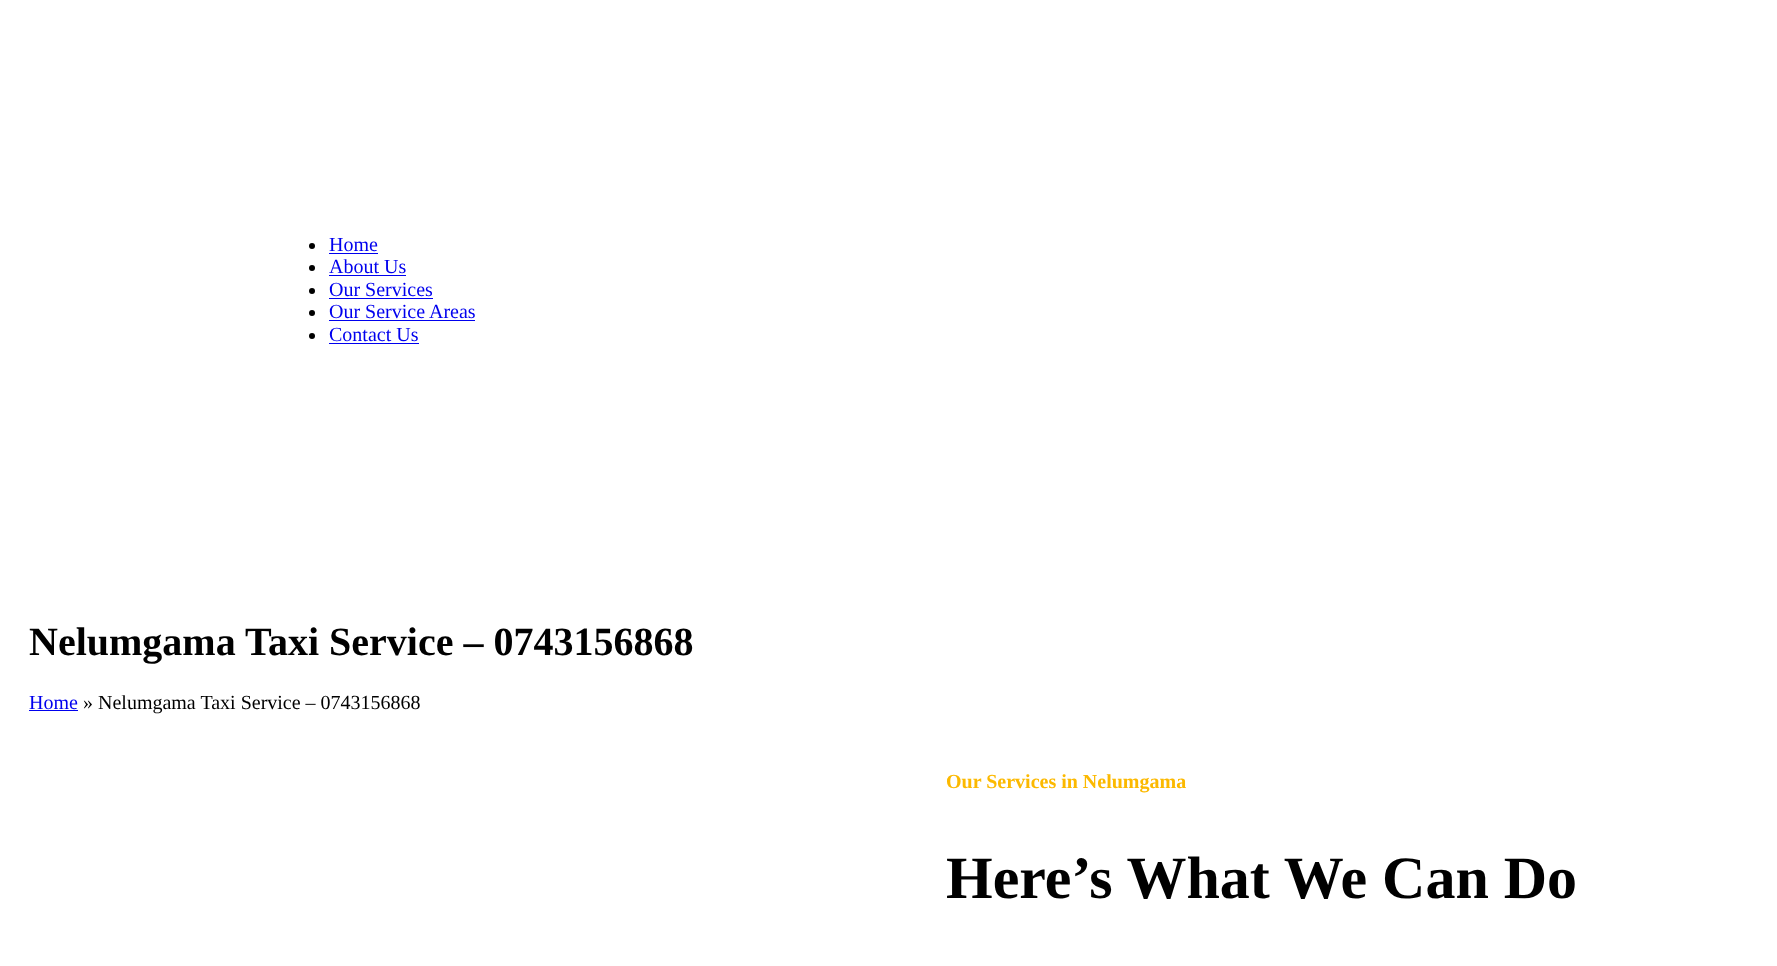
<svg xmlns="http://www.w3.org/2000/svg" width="1777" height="966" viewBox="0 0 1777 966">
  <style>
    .t1 { font: 20px Liberation Serif; fill: #00e; }
    .t2 { font: bold 40px Liberation Serif; fill: #000; }
    .t3 { font: 20px Liberation Serif; fill: #000; }
    .t4 { font: bold 20px Liberation Serif; fill: #fcb900; }
    .t5 { font: bold 60px Liberation Serif; fill: #000; }
  </style>
  <rect width="100%" height="100%" fill="#fff"/>
  <circle cx="312" cy="246" r="3" fill="#000"/>
  <text x="329" y="251" class="t1">Home</text>
  <rect x="329" y="253" width="49" height="1" fill="#00e"/>
  <circle cx="312" cy="268" r="3" fill="#000"/>
  <text x="329" y="273" class="t1">About Us</text>
  <rect x="329" y="275" width="77" height="1" fill="#00e"/>
  <circle cx="312" cy="291" r="3" fill="#000"/>
  <text x="329" y="296" class="t1">Our Services</text>
  <rect x="329" y="298" width="104" height="1" fill="#00e"/>
  <circle cx="312" cy="313" r="3" fill="#000"/>
  <text x="329" y="318" class="t1">Our Service Areas</text>
  <rect x="329" y="320" width="146" height="1" fill="#00e"/>
  <circle cx="312" cy="336" r="3" fill="#000"/>
  <text x="329" y="341" class="t1">Contact Us</text>
  <rect x="329" y="343" width="90" height="1" fill="#00e"/>
  <text x="29" y="655" class="t2">Nelumgama Taxi Service – 0743156868</text>
  <text x="29" y="709" class="t1">Home</text>
  <rect x="29" y="710" width="49" height="1" fill="#00e"/>
  <text x="83" y="709" class="t3">» Nelumgama Taxi Service – 0743156868</text>
  <text x="946" y="788" class="t4">Our Services in Nelumgama</text>
  <text x="946" y="898" class="t5">Here’s What We Can Do</text>
</svg>
